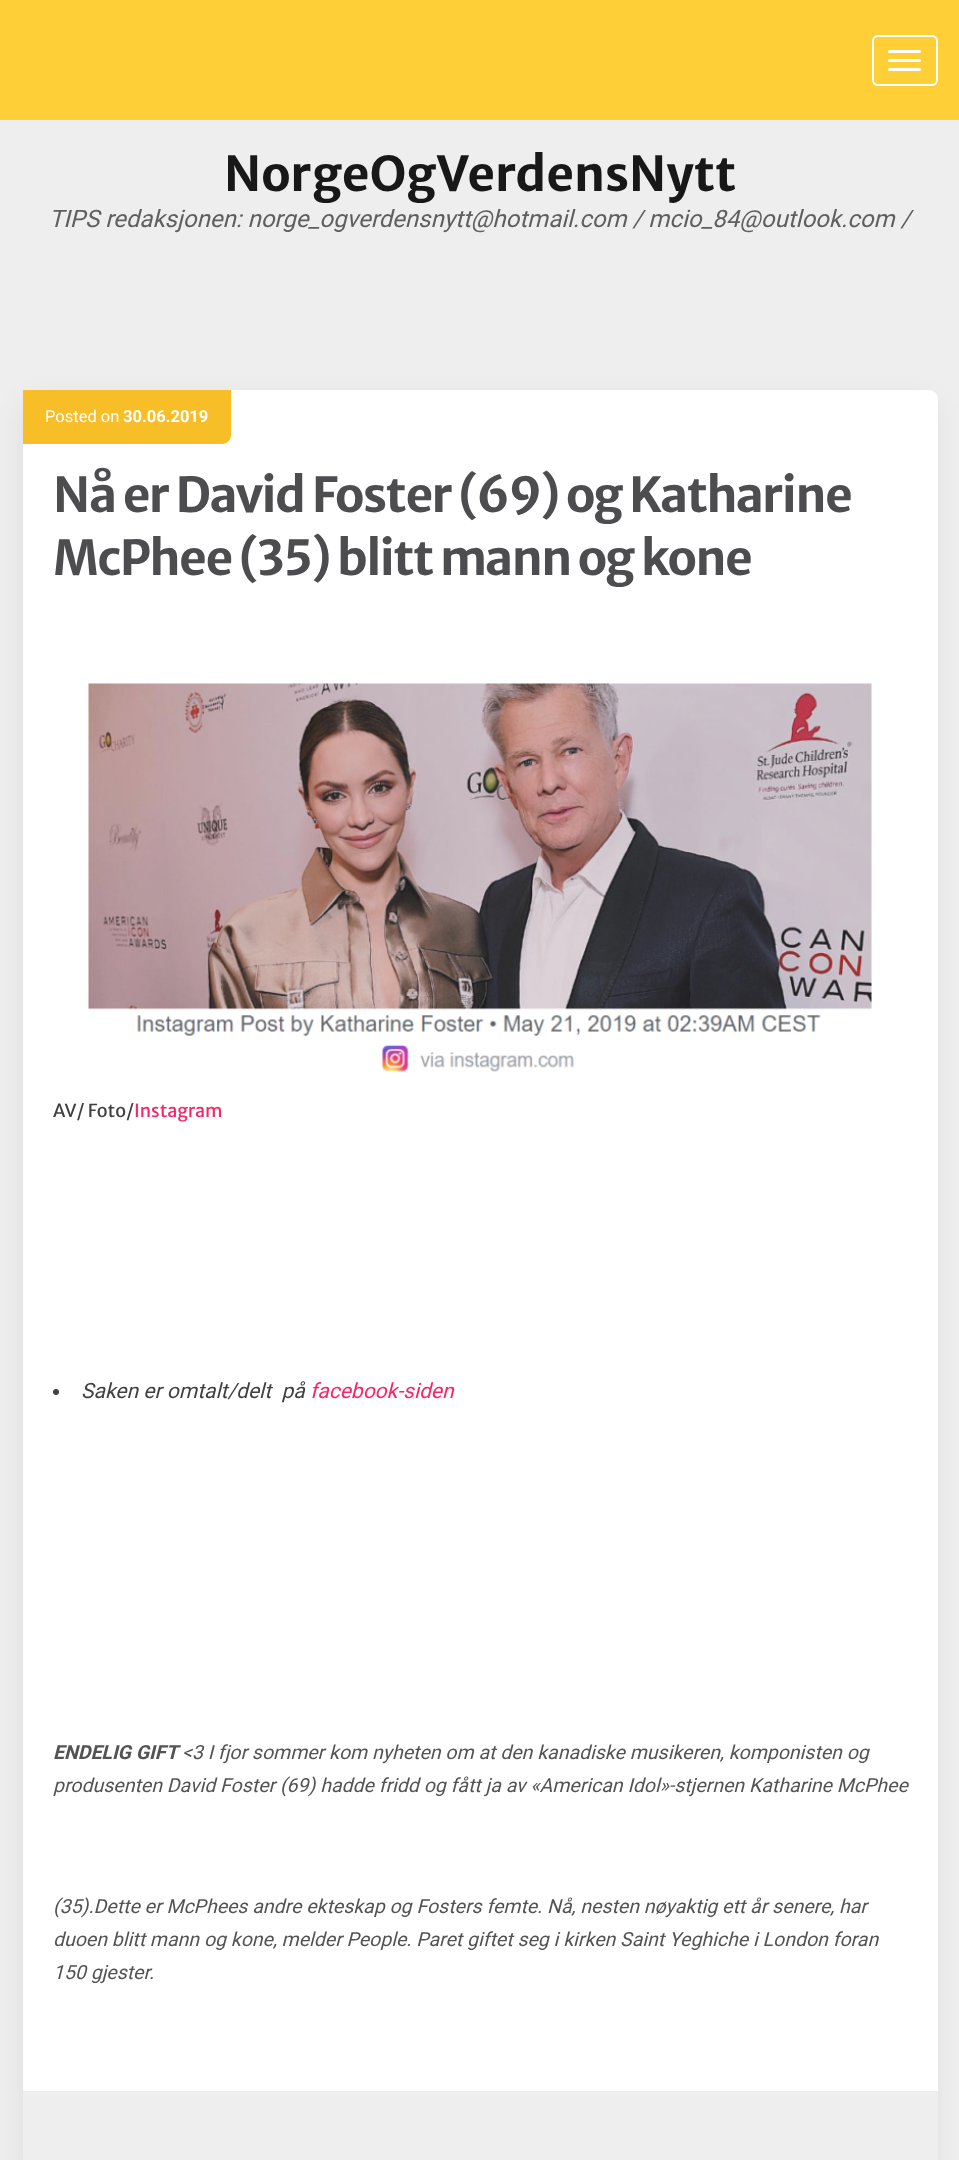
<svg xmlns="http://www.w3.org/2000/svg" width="959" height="2160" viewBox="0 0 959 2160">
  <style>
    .t1 { font: bold 48px Merriweather Sans; fill: #181818; }
    .t2 { font: italic 24px Roboto; fill: #5f5f5f; }
    .t3 { font: 16.5px Roboto; fill: #fff; }
    .t4 { font: bold 16.5px Roboto; fill: #fff; }
    .t5 { font: bold 48px Merriweather Sans; letter-spacing: -1.5px; fill: #4d4d4f; }
    .t6 { font: 18px Merriweather Sans; fill: #404040; }
    .t7 { font: 18px Merriweather Sans; fill: #f72565; }
    .t8 { font: italic 21px Roboto; fill: #404040; }
    .t9 { font: italic 21px Roboto; fill: #f72565; }
    .t10 { font: italic bold 19.5px Roboto; fill: #535353; }
    .t11 { font: italic 19.5px Roboto; fill: #535353; }
  </style>
  <rect width="100%" height="100%" fill="#eee"/>
  <rect x="0" y="0" width="959" height="120" fill="#ffcf38"/>
  <rect x="873" y="36" width="64" height="49" rx="5" fill="none" stroke="#fff" stroke-width="2"/>
  <rect x="888" y="50" width="33" height="3" rx="1.5" fill="#fff"/>
  <rect x="888" y="59" width="33" height="3" rx="1.5" fill="#fff"/>
  <rect x="888" y="68" width="33" height="3" rx="1.5" fill="#fff"/>
  <text x="224" y="191" class="t1">NorgeOgVerdensNytt</text>
  <text x="49" y="227" class="t2">TIPS redaksjonen: norge_ogverdensnytt@hotmail.com / mcio_84@outlook.com /</text>
  <rect x="29" y="404" width="900" height="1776" rx="1.5" fill="#0000001a" filter="blur(15px)"/>
  <rect x="23" y="390" width="915" height="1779" rx="9" fill="#fff"/>
  <path d="M23 390H231V435C231 440 227 444 222 444H23Z" fill="#f8be27"/>
  <text x="45" y="422" class="t3">Posted on</text>
  <text x="123" y="422" class="t4">30.06.2019</text>
  <text x="53" y="512" class="t5">Nå er David Foster (69) og Katharine</text>
  <text x="53" y="575" class="t5">McPhee (35) blitt mann og kone</text>
  <image x="88" y="683" width="784" height="389" href="images/1.png"/>
  <text x="53" y="1117" class="t6">AV/ Foto/</text>
  <text x="134" y="1117" class="t7">Instagram</text>
  <circle cx="56" cy="1392" r="3" fill="#404040"/>
  <text x="81" y="1398" class="t8" xml:space="preserve">Saken er omtalt/delt  på</text>
  <text x="310" y="1398" class="t9">facebook-siden</text>
  <text x="53" y="1759" class="t10">ENDELIG GIFT</text>
  <text x="182" y="1759" class="t11">&lt;3 I fjor sommer kom nyheten om at den kanadiske musikeren, komponisten og</text>
  <text x="53" y="1792" class="t11">produsenten David Foster (69) hadde fridd og fått ja av «American Idol»-stjernen Katharine McPhee</text>
  <text x="53" y="1913" class="t11">(35).Dette er McPhees andre ekteskap og Fosters femte. Nå, nesten nøyaktig ett år senere, har</text>
  <text x="53" y="1946" class="t11">duoen blitt mann og kone, melder People. Paret giftet seg i kirken Saint Yeghiche i London foran</text>
  <text x="53" y="1979" class="t11">150 gjester.</text>
  <rect x="23" y="2091" width="915" height="69" fill="#eee"/>
</svg>
